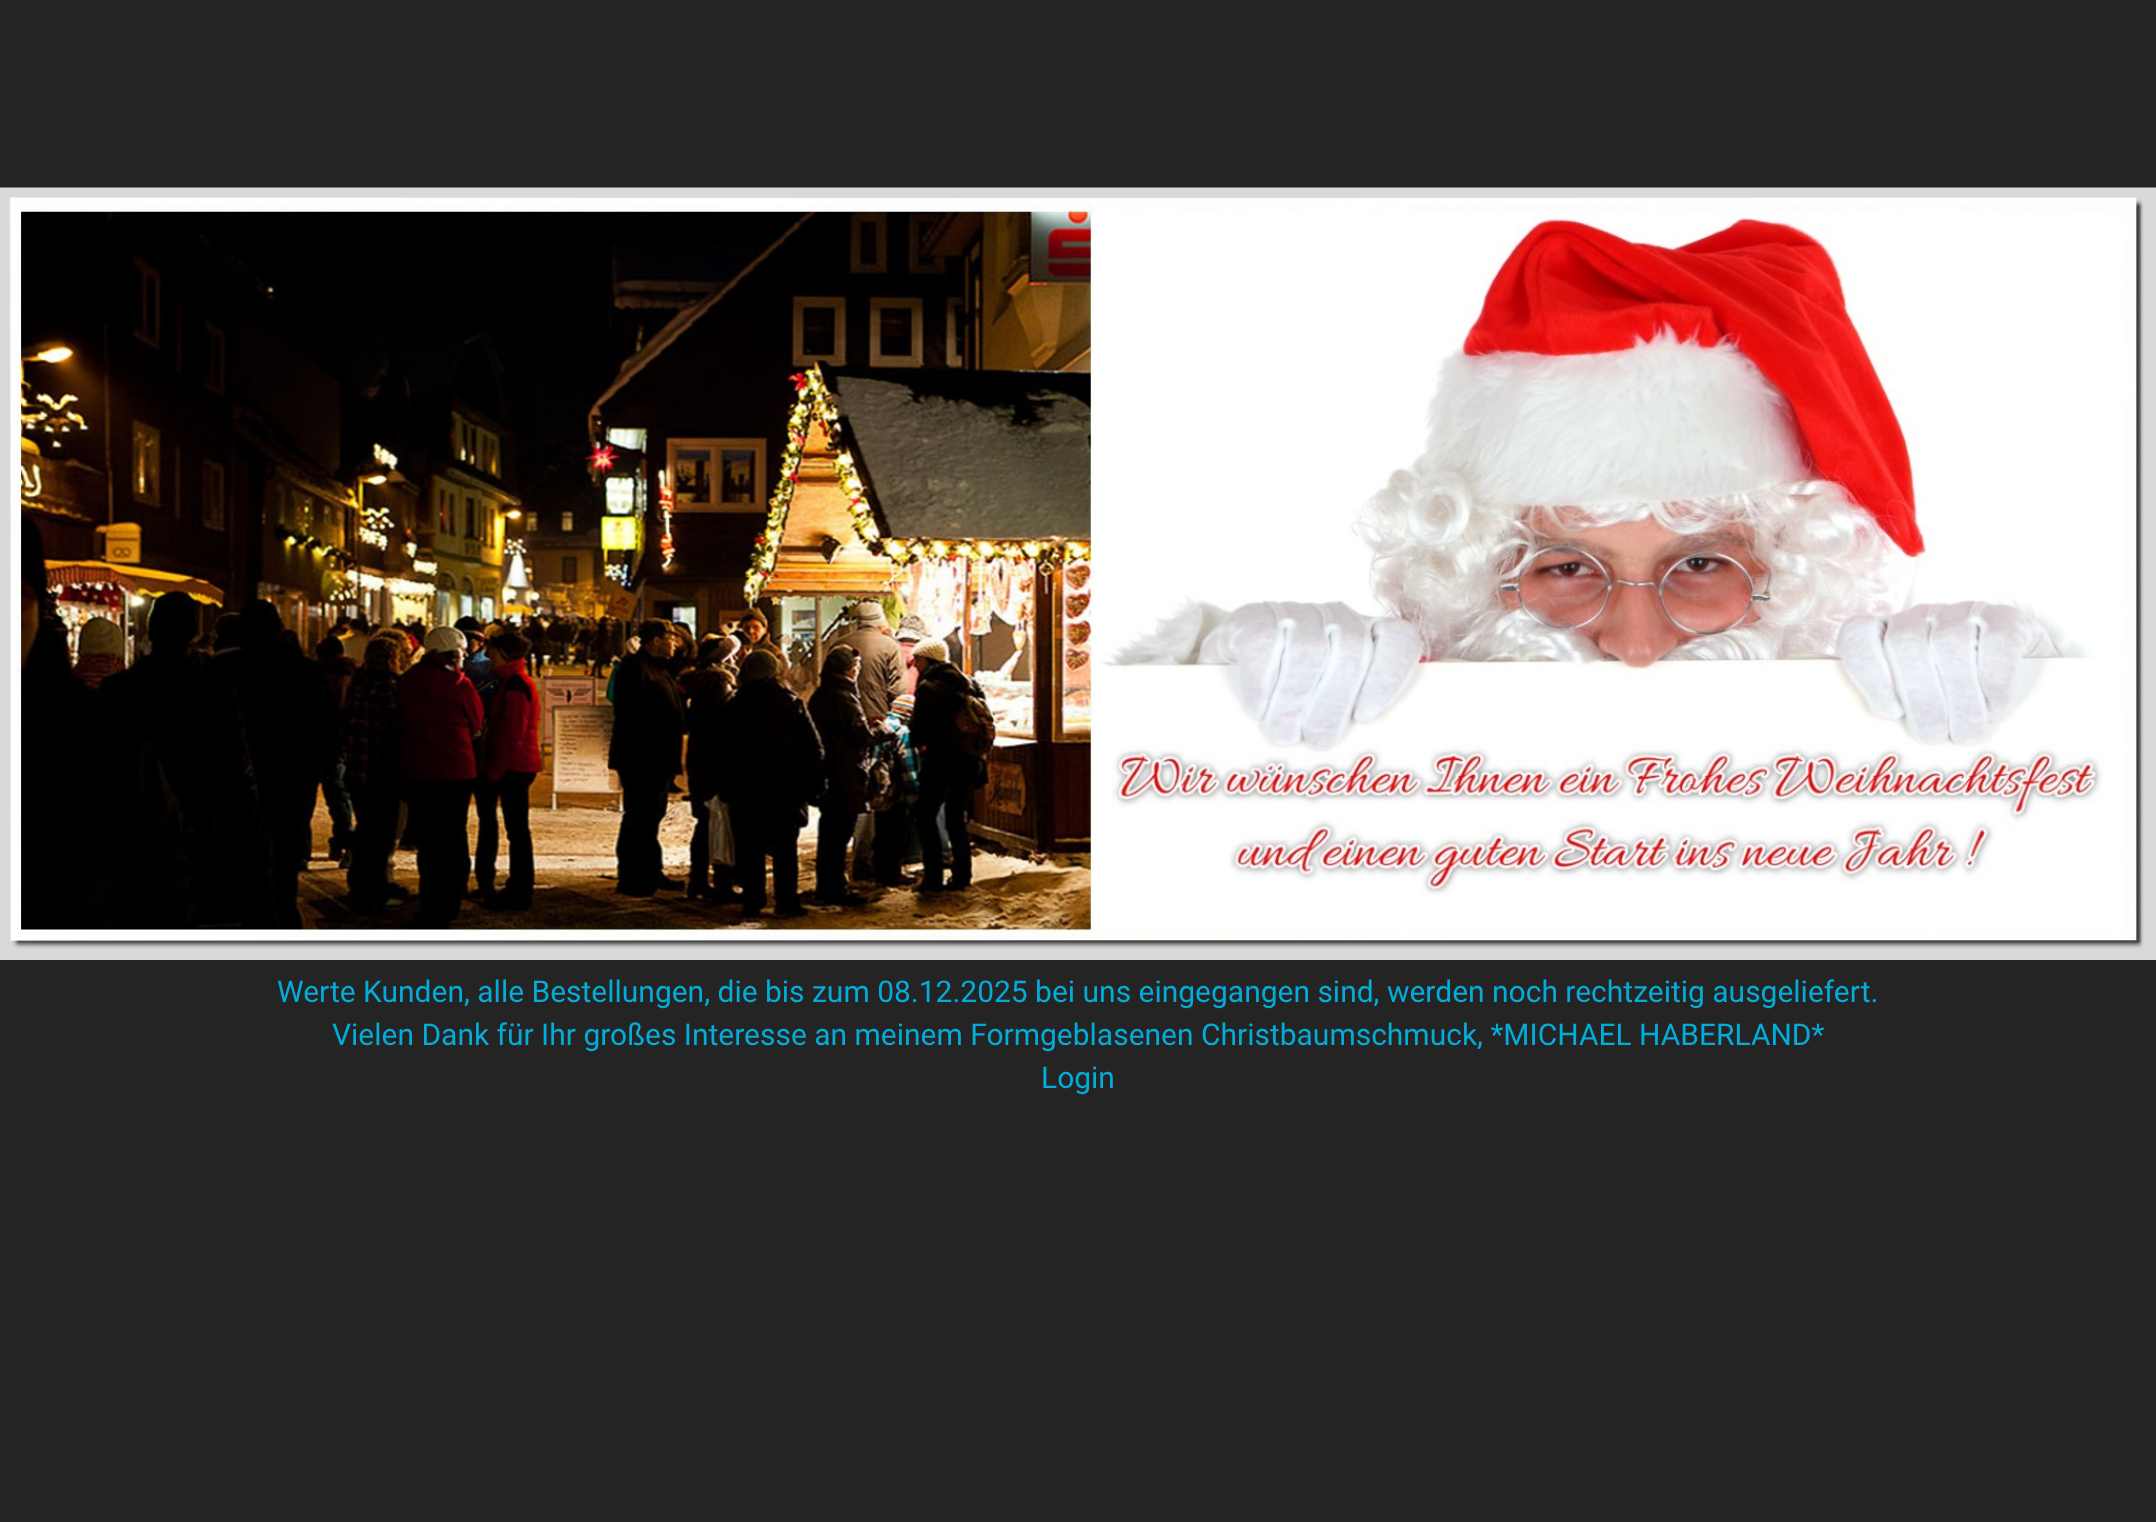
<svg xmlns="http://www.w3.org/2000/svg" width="2156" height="1522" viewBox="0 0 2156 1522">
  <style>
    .t1 { font: 30px Roboto; fill: #04acd9; }
  </style>
  <rect width="100%" height="100%" fill="#242424"/>
  <image x="0" y="187" width="2156" height="773" href="images/1.png"/>
  <text x="277" y="1002" class="t1">Werte Kunden, alle Bestellungen, die bis zum 08.12.2025 bei uns eingegangen sind, werden noch rechtzeitig ausgeliefert.</text>
  <text x="332" y="1045" class="t1">Vielen Dank für Ihr großes Interesse an meinem Formgeblasenen Christbaumschmuck, *MICHAEL HABERLAND*</text>
  <text x="1041" y="1088" class="t1">Login</text>
</svg>
